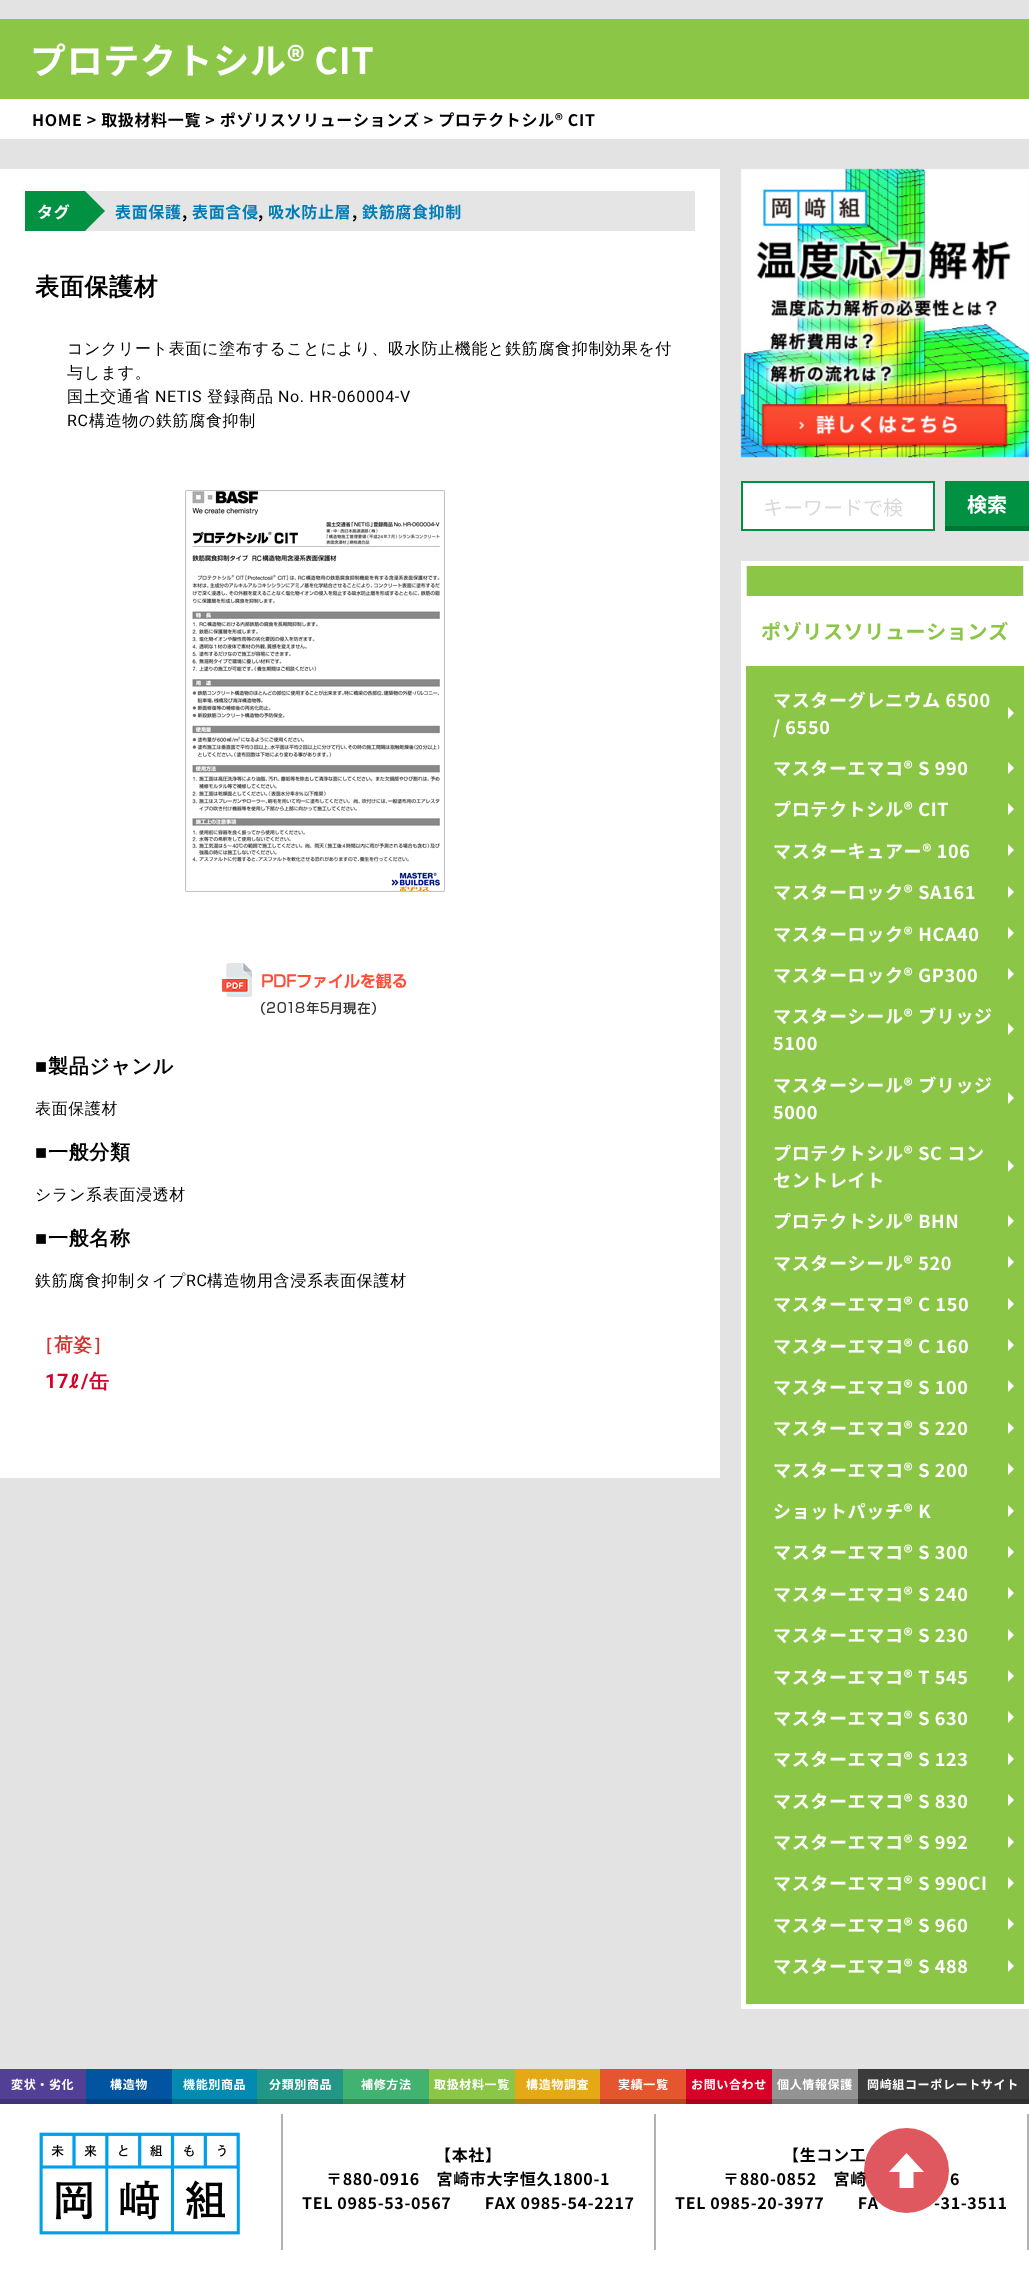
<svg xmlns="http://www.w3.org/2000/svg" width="1029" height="2293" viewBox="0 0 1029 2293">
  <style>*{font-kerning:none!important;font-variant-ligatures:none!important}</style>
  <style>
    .t1 { font: bold 36px Noto Sans JP; letter-spacing: 0.65px; fill: #fff; }
    .t2 { font: bold 16px Noto Sans JP; letter-spacing: 0.65px; fill: #000; }
    .t3 { font: bold 16px Noto Sans JP; letter-spacing: 0.65px; fill: #fff; }
    .t4 { font: bold 16px Noto Sans JP; letter-spacing: 0.65px; fill: #007db6; }
    .t5 { font: bold 24px WenQuanYi Zen Hei; letter-spacing: 0.65px; fill: #000; }
    .t6 { font: 500 16px WenQuanYi Zen Hei; letter-spacing: 0.65px; fill: #000; }
    .t7 { font: 16px Roboto; letter-spacing: 0.65px; fill: #000; }
    .t8 { font: bold 20px Liberation Sans; letter-spacing: 0.65px; fill: #000; }
    .t9 { font: bold 20px WenQuanYi Zen Hei; letter-spacing: 0.65px; fill: #000; }
    .t10 { font: bold 18.5px WenQuanYi Zen Hei; letter-spacing: 0.65px; fill: #d63232; }
    .t11 { font: bold 20px Roboto; letter-spacing: 0.65px; fill: #d80027; }
    .t12 { font: bold 20px WenQuanYi Zen Hei; letter-spacing: 0.65px; fill: #d80027; }
    .t13 { font: 20px Noto Sans JP; fill: #d9d9d9; }
    .t14 { font: bold 20px Noto Sans JP; fill: #fff; }
    .t15 { font: bold 20px Noto Sans JP; letter-spacing: 0.65px; fill: #8bc646; }
    .t16 { font: bold 18px Noto Sans JP; letter-spacing: 0.65px; fill: #fff; }
    .t17 { font: bold 12px Noto Sans JP; letter-spacing: 0.65px; fill: #fff; }
  </style>
  <defs>
    <clipPath id="clip1"><rect x="746" y="566" width="278" height="1438"/></clipPath>
  </defs>
  <rect width="100%" height="100%" fill="#e3e3e3"/>
  <rect x="0" y="99" width="1029" height="40" fill="#fff"/>
  <rect x="0" y="19" width="1029" height="80" fill="#8bc646"/>
  <text x="30" y="74" class="t1">プロテクトシル® CIT</text>
  <text x="32" y="126" class="t2">HOME &gt; 取扱材料一覧 &gt; ポゾリスソリューションズ &gt; プロテクトシル® CIT</text>
  <rect x="0" y="169" width="720" height="1309" fill="#fff"/>
  <rect x="85" y="191" width="610" height="40" fill="#e5e5e5"/>
  <rect x="25" y="191" width="60" height="40" fill="#009143"/>
  <text x="37" y="218" class="t3">タグ</text>
  <path d="M85 231V191L105 211Z" fill="#009143"/>
  <text x="115" y="218" class="t4">表面保護</text>
  <text x="182" y="218" class="t2">,</text>
  <text x="192" y="218" class="t4">表面含侵</text>
  <text x="258" y="218" class="t2">,</text>
  <text x="268" y="218" class="t4">吸水防止層</text>
  <text x="352" y="218" class="t2">,</text>
  <text x="362" y="218" class="t4">鉄筋腐食抑制</text>
  <text x="35" y="295" class="t5">表面保護材</text>
  <text x="67" y="354" class="t6">コンクリート表面に塗布することにより、吸水防止機能と鉄筋腐食抑制効果を付</text>
  <text x="67" y="378" class="t6">与します。</text>
  <text x="67" y="402" class="t6">国土交通省</text>
  <text x="155" y="402" class="t7">NETIS</text>
  <text x="207" y="402" class="t6">登録商品</text>
  <text x="278" y="402" class="t7">No. HR-060004-V</text>
  <text x="67" y="426" class="t7">RC</text>
  <text x="89" y="426" class="t6">構造物の鉄筋腐食抑制</text>
  <image x="185" y="490" width="260" height="402" href="images/1.png"/>
  <image x="222" y="963" width="184" height="52" href="images/2.png"/>
  <text x="35" y="1073" class="t8">■</text>
  <text x="48" y="1073" class="t9">製品ジャンル</text>
  <text x="35" y="1114" class="t6">表面保護材</text>
  <text x="35" y="1159" class="t8">■</text>
  <text x="48" y="1159" class="t9">一般分類</text>
  <text x="35" y="1200" class="t6">シラン系表面浸透材</text>
  <text x="35" y="1245" class="t8">■</text>
  <text x="48" y="1245" class="t9">一般名称</text>
  <text x="35" y="1286" class="t6">鉄筋腐食抑制タイプ</text>
  <text x="186" y="1286" class="t7">RC</text>
  <text x="207" y="1286" class="t6">構造物用含浸系表面保護材</text>
  <text x="35" y="1351" class="t10">［荷姿］</text>
  <text x="45" y="1388" class="t11">17</text>
  <text x="69" y="1388" class="t12">ℓ</text>
  <text x="81" y="1388" class="t11">/</text>
  <text x="89" y="1388" class="t12">缶</text>
  <image x="740" y="168" width="289" height="290" href="images/3.png"/>
  <rect x="742" y="482" width="192" height="48" fill="#fff" stroke="#009143" stroke-width="2"/>
  <text x="763" y="515" class="t13">キーワードで検</text>
  <rect x="945" y="481" width="84" height="45" fill="#009143"/>
  <rect x="945" y="526" width="84" height="5" fill="#007436"/>
  <text x="967" y="512" class="t14">検索</text>
  <rect x="743.5" y="563.5" width="283" height="1443" fill="#8bc646" stroke="#fff" stroke-width="5"/>
  <rect x="746" y="596" width="278" height="70" rx="1" fill="#fff"/>
  <rect x="746" y="566" width="1" height="30" fill="#e5e5e5"/>
  <g clip-path="url(#clip1)">
    <path d="M747 596V666L677 596Z" fill="#fff"/>
  </g>
  <text x="761" y="639" class="t15">ポゾリスソリューションズ</text>
  <rect x="1023" y="566" width="1" height="30" fill="#e5e5e5"/>
  <g clip-path="url(#clip1)">
    <path d="M1023 666V596H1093Z" fill="#fff"/>
  </g>
  <text x="773" y="707" class="t16">マスターグレニウム 6500</text>
  <text x="773" y="734" class="t16">/ 6550</text>
  <path d="M1008 719V707L1014 713Z" fill="#fff"/>
  <text x="773" y="775" class="t16">マスターエマコ® S 990</text>
  <path d="M1008 774V762L1014 768Z" fill="#fff"/>
  <text x="773" y="816" class="t16">プロテクトシル® CIT</text>
  <path d="M1008 815V803L1014 809Z" fill="#fff"/>
  <text x="773" y="858" class="t16">マスターキュアー® 106</text>
  <path d="M1008 856V844L1014 850Z" fill="#fff"/>
  <text x="773" y="899" class="t16">マスターロック® SA161</text>
  <path d="M1008 898V886L1014 892Z" fill="#fff"/>
  <text x="773" y="941" class="t16">マスターロック® HCA40</text>
  <path d="M1008 939V927L1014 933Z" fill="#fff"/>
  <text x="773" y="982" class="t16">マスターロック® GP300</text>
  <path d="M1008 980V968L1014 974Z" fill="#fff"/>
  <text x="773" y="1023" class="t16">マスターシール® ブリッジ</text>
  <text x="773" y="1050" class="t16">5100</text>
  <path d="M1008 1035V1023L1014 1029Z" fill="#fff"/>
  <text x="773" y="1092" class="t16">マスターシール® ブリッジ</text>
  <text x="773" y="1119" class="t16">5000</text>
  <path d="M1008 1104V1092L1014 1098Z" fill="#fff"/>
  <text x="773" y="1160" class="t16">プロテクトシル® SC コン</text>
  <text x="773" y="1187" class="t16">セントレイト</text>
  <path d="M1008 1172V1160L1014 1166Z" fill="#fff"/>
  <text x="773" y="1228" class="t16">プロテクトシル® BHN</text>
  <path d="M1008 1227V1215L1014 1221Z" fill="#fff"/>
  <text x="773" y="1270" class="t16">マスターシール® 520</text>
  <path d="M1008 1268V1256L1014 1262Z" fill="#fff"/>
  <text x="773" y="1311" class="t16">マスターエマコ® C 150</text>
  <path d="M1008 1310V1298L1014 1304Z" fill="#fff"/>
  <text x="773" y="1353" class="t16">マスターエマコ® C 160</text>
  <path d="M1008 1351V1339L1014 1345Z" fill="#fff"/>
  <text x="773" y="1394" class="t16">マスターエマコ® S 100</text>
  <path d="M1008 1392V1380L1014 1386Z" fill="#fff"/>
  <text x="773" y="1435" class="t16">マスターエマコ® S 220</text>
  <path d="M1008 1434V1422L1014 1428Z" fill="#fff"/>
  <text x="773" y="1477" class="t16">マスターエマコ® S 200</text>
  <path d="M1008 1475V1463L1014 1469Z" fill="#fff"/>
  <text x="773" y="1518" class="t16">ショットパッチ® K</text>
  <path d="M1008 1517V1505L1014 1511Z" fill="#fff"/>
  <text x="773" y="1559" class="t16">マスターエマコ® S 300</text>
  <path d="M1008 1558V1546L1014 1552Z" fill="#fff"/>
  <text x="773" y="1601" class="t16">マスターエマコ® S 240</text>
  <path d="M1008 1599V1587L1014 1593Z" fill="#fff"/>
  <text x="773" y="1642" class="t16">マスターエマコ® S 230</text>
  <path d="M1008 1641V1629L1014 1635Z" fill="#fff"/>
  <text x="773" y="1684" class="t16">マスターエマコ® T 545</text>
  <path d="M1008 1682V1670L1014 1676Z" fill="#fff"/>
  <text x="773" y="1725" class="t16">マスターエマコ® S 630</text>
  <path d="M1008 1723V1711L1014 1717Z" fill="#fff"/>
  <text x="773" y="1766" class="t16">マスターエマコ® S 123</text>
  <path d="M1008 1765V1753L1014 1759Z" fill="#fff"/>
  <text x="773" y="1808" class="t16">マスターエマコ® S 830</text>
  <path d="M1008 1806V1794L1014 1800Z" fill="#fff"/>
  <text x="773" y="1849" class="t16">マスターエマコ® S 992</text>
  <path d="M1008 1848V1836L1014 1842Z" fill="#fff"/>
  <text x="773" y="1890" class="t16">マスターエマコ® S 990CI</text>
  <path d="M1008 1889V1877L1014 1883Z" fill="#fff"/>
  <text x="773" y="1932" class="t16">マスターエマコ® S 960</text>
  <path d="M1008 1930V1918L1014 1924Z" fill="#fff"/>
  <text x="773" y="1973" class="t16">マスターエマコ® S 488</text>
  <path d="M1008 1972V1960L1014 1966Z" fill="#fff"/>
  <rect x="0" y="2069" width="86" height="30" fill="#524096"/>
  <rect x="0" y="2099" width="86" height="5" fill="#423378"/>
  <text x="11" y="2089" class="t17">変状・劣化</text>
  <rect x="86" y="2069" width="86" height="30" fill="#0054a0"/>
  <rect x="86" y="2099" width="86" height="5" fill="#004380"/>
  <text x="110" y="2089" class="t17">構造物</text>
  <rect x="172" y="2069" width="85" height="30" fill="#028ab2"/>
  <rect x="172" y="2099" width="85" height="5" fill="#026e8e"/>
  <text x="183" y="2089" class="t17">機能別商品</text>
  <rect x="257" y="2069" width="86" height="30" fill="#229787"/>
  <rect x="257" y="2099" width="86" height="5" fill="#1b796c"/>
  <text x="269" y="2089" class="t17">分類別商品</text>
  <rect x="343" y="2069" width="86" height="30" fill="#40b371"/>
  <rect x="343" y="2099" width="86" height="5" fill="#338f5a"/>
  <text x="361" y="2089" class="t17">補修方法</text>
  <rect x="429" y="2069" width="86" height="30" fill="#8bc646"/>
  <rect x="429" y="2099" width="86" height="5" fill="#6f9e38"/>
  <text x="434" y="2089" class="t17">取扱材料一覧</text>
  <rect x="515" y="2069" width="85" height="30" fill="#e5a816"/>
  <rect x="515" y="2099" width="85" height="5" fill="#b78612"/>
  <text x="526" y="2089" class="t17">構造物調査</text>
  <rect x="600" y="2069" width="86" height="30" fill="#e5552e"/>
  <rect x="600" y="2099" width="86" height="5" fill="#b74425"/>
  <text x="618" y="2089" class="t17">実績一覧</text>
  <rect x="686" y="2069" width="86" height="30" fill="#d80027"/>
  <rect x="686" y="2099" width="86" height="5" fill="#ad001f"/>
  <text x="691" y="2089" class="t17">お問い合わせ</text>
  <rect x="772" y="2069" width="86" height="30" fill="#939393"/>
  <rect x="772" y="2099" width="86" height="5" fill="#767676"/>
  <text x="777" y="2089" class="t17">個人情報保護</text>
  <rect x="858" y="2069" width="171" height="30" fill="#3b3b3b"/>
  <rect x="858" y="2099" width="171" height="5" fill="#2f2f2f"/>
  <text x="867" y="2089" class="t17">岡﨑組コーポレートサイト</text>
  <rect x="0" y="2104" width="1029" height="189" fill="#fff"/>
  <text x="783" y="2161" class="t2">【生コン工</text>
  <text x="723" y="2185" class="t2">〒880-0852　宮崎</text>
  <text x="675" y="2209" class="t2">TEL 0985-20-3977　　FA</text>
  <text x="934" y="2209" class="t2">-31-3511</text>
  <circle cx="906.5" cy="2170.5" r="42.5" fill="#d2101bb3"/>
  <path d="M924 2172L906.5 2153L889 2172H899.5V2188H913.5V2172Z" fill="#fff"/>
  <rect x="281" y="2114" width="2" height="136" fill="#b2b2b2"/>
  <image x="39" y="2132" width="201" height="103" href="images/4.png"/>
  <rect x="654" y="2114" width="2" height="136" fill="#b2b2b2"/>
  <text x="435" y="2161" class="t2">【本社】</text>
  <text x="326" y="2185" class="t2">〒880-0916　宮崎市大字恒久1800-1</text>
  <text x="302" y="2209" class="t2">TEL 0985-53-0567　　FAX 0985-54-2217</text>
  <rect x="1027" y="2114" width="2" height="136" fill="#b2b2b2"/>
  <text x="950" y="2185" class="t2">6</text>
</svg>
